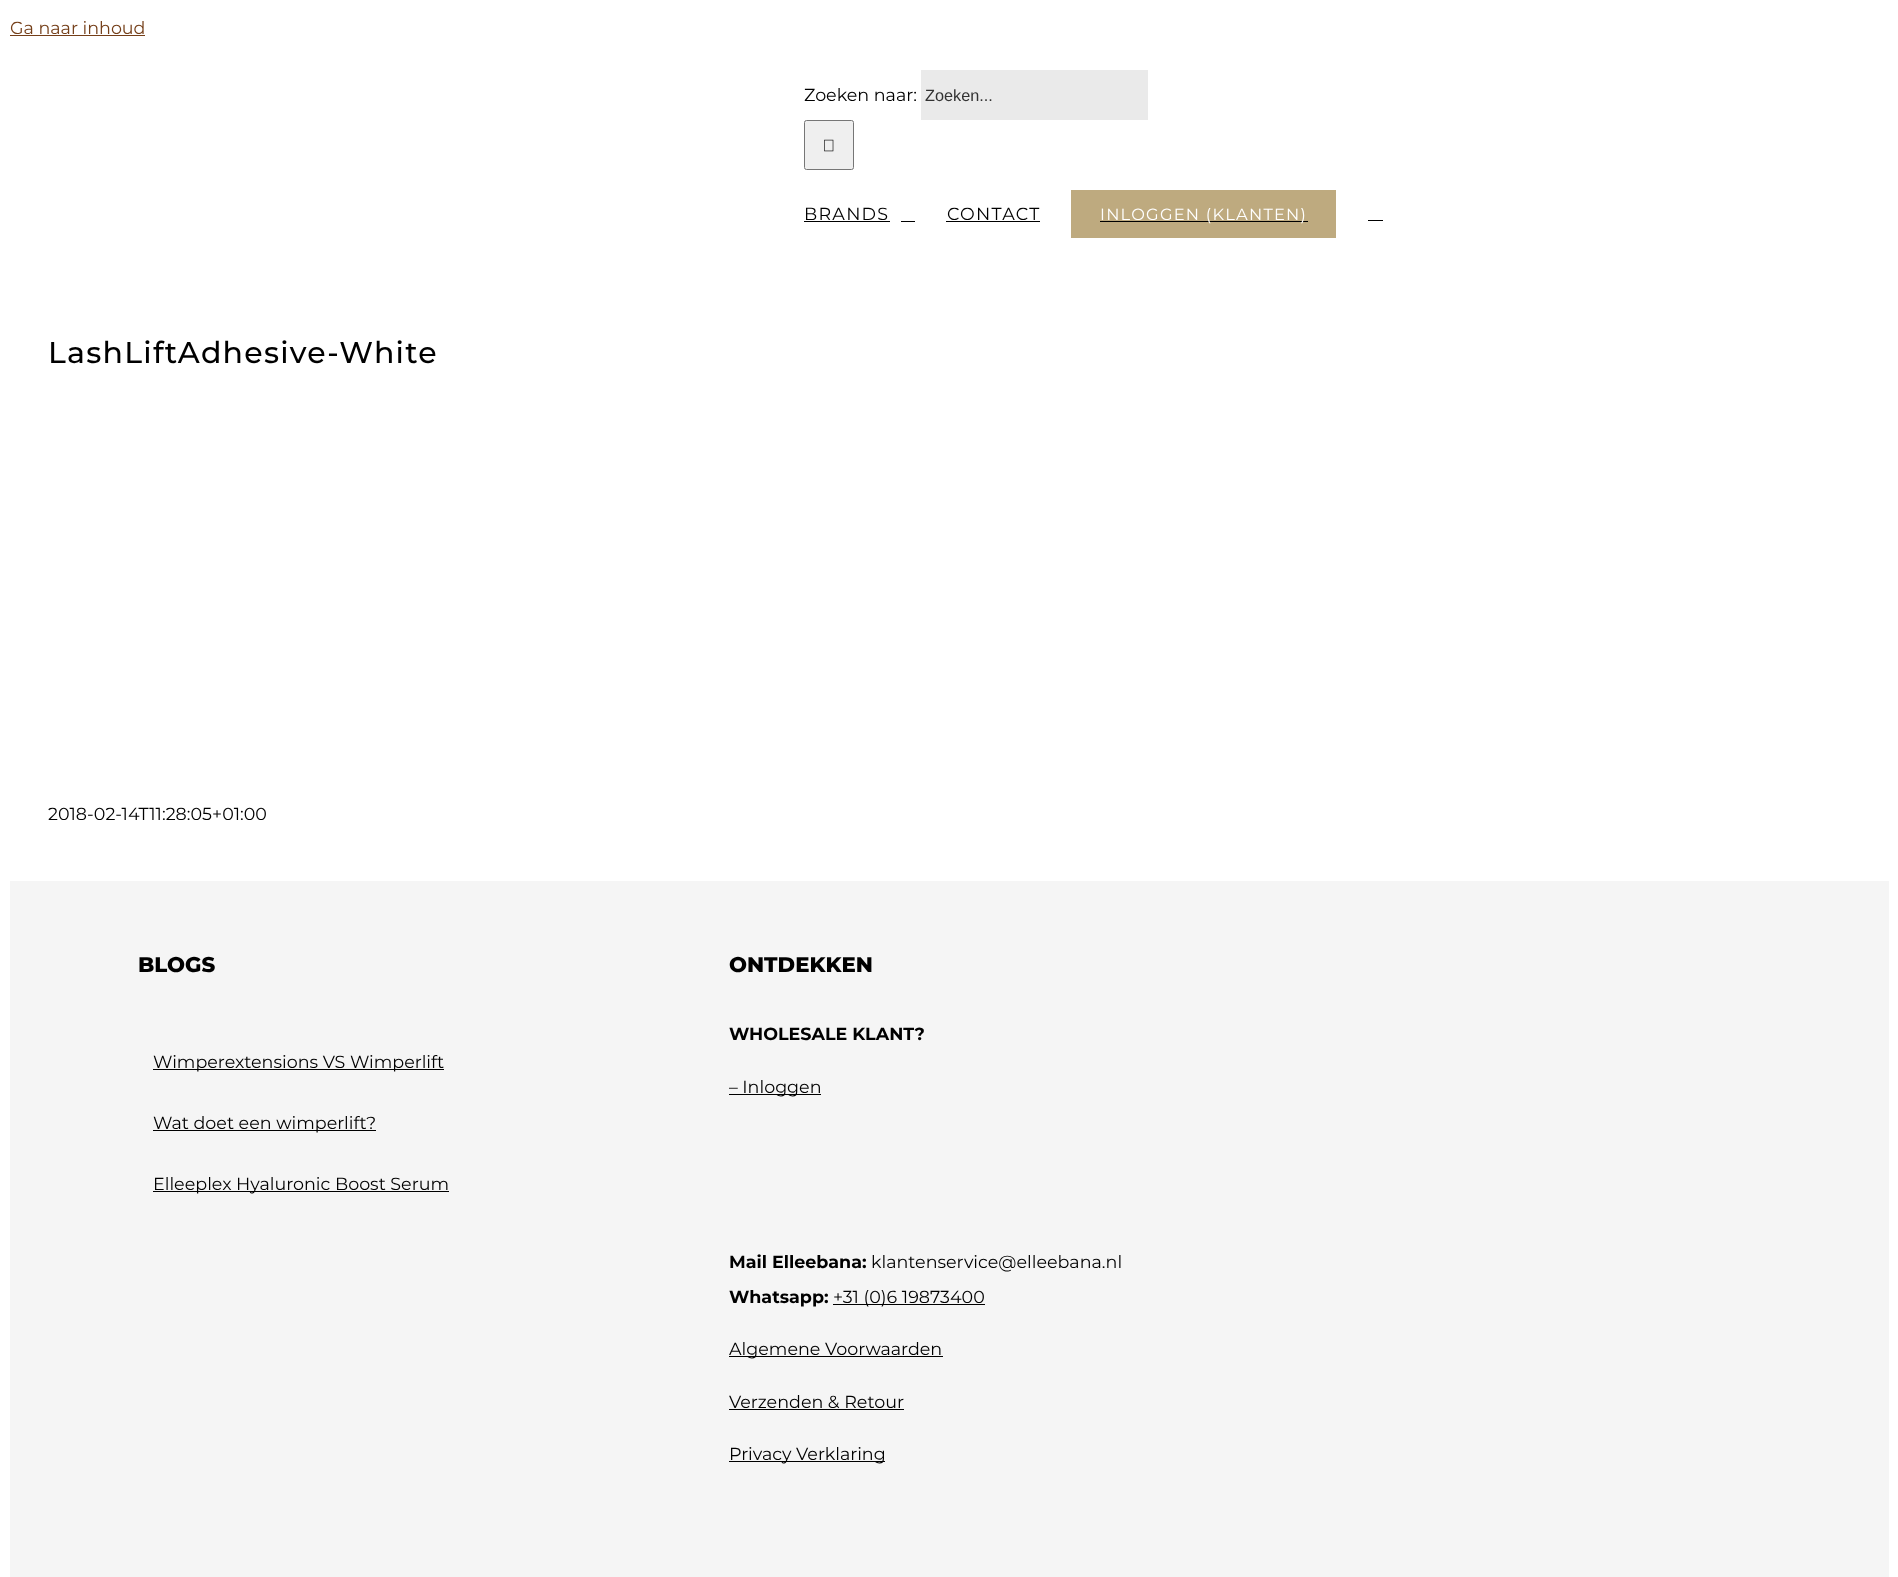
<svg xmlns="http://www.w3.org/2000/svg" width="1898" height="1577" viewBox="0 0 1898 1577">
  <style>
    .t1 { font: 17.5px Montserrat; fill: #743e18; }
    .t2 { font: 17.5px Montserrat; fill: #000; }
    .t3 { font: 16.25px Liberation Sans; fill: #333; }
    .t4 { font: 17.5px Montserrat; letter-spacing: 1.25px; fill: #000; }
    .t5 { font: 16.25px Montserrat; letter-spacing: 1.25px; fill: #fff; }
    .t6 { font: 500 30px Montserrat; letter-spacing: 1.25px; fill: #000; }
    .t7 { font: 800 21.25px Montserrat; fill: #000; }
    .t8 { font: bold 17.5px Montserrat; fill: #000; }
  </style>
  <rect width="100%" height="100%" fill="#fff"/>
  <text x="10" y="34" class="t1">Ga naar inhoud</text>
  <rect x="10" y="35" width="135" height="1" fill="#743e18"/>
  <text x="804" y="101" class="t2">Zoeken naar:</text>
  <rect x="921" y="70" width="227" height="50" fill="#eaeaea"/>
  <text x="925" y="101" class="t3">Zoeken...</text>
  <rect x="804.5" y="120.5" width="49" height="49" rx="2" fill="#efefef" stroke="#767676"/>
  <image x="824" y="139" width="10" height="13" href="images/1.png"/>
  <text x="804" y="220" class="t4">BRANDS</text>
  <rect x="804" y="221" width="86" height="1" fill="#000"/>
  <rect x="901" y="221" width="14" height="1" fill="#000"/>
  <text x="947" y="220" class="t4">CONTACT</text>
  <rect x="946" y="221" width="94" height="1" fill="#000"/>
  <rect x="1071" y="190" width="265" height="48" fill="#beaa7f"/>
  <rect x="1100" y="221" width="208" height="1" fill="#000"/>
  <text x="1100" y="220" class="t5">INLOGGEN (KLANTEN)</text>
  <rect x="1368" y="220" width="15" height="1" fill="#000"/>
  <text x="48" y="363" class="t6">LashLiftAdhesive-White</text>
  <text x="48" y="820" class="t2">2018-02-14T11:28:05+01:00</text>
  <rect x="10" y="881" width="1879" height="696" fill="#f5f5f5"/>
  <text x="138" y="972" class="t7">BLOGS</text>
  <rect x="153" y="1069" width="291" height="1" fill="#000"/>
  <text x="153" y="1068" class="t2">Wimperextensions VS Wimperlift</text>
  <rect x="153" y="1130" width="223" height="1" fill="#000"/>
  <text x="153" y="1129" class="t2">Wat doet een wimperlift?</text>
  <rect x="153" y="1191" width="296" height="1" fill="#000"/>
  <text x="153" y="1190" class="t2">Elleeplex Hyaluronic Boost Serum</text>
  <text x="729" y="972" class="t7">ONTDEKKEN</text>
  <text x="729" y="1040" class="t8">WHOLESALE KLANT?</text>
  <rect x="729" y="1094" width="92" height="1" fill="#000"/>
  <text x="729" y="1093" class="t2">– Inloggen</text>
  <text x="729" y="1268" class="t8">Mail Elleebana:</text>
  <text x="871" y="1268" class="t2">klantenservice@elleebana.nl</text>
  <text x="729" y="1303" class="t8">Whatsapp:</text>
  <rect x="833" y="1304" width="152" height="1" fill="#000"/>
  <text x="833" y="1303" class="t2">+31 (0)6 19873400</text>
  <rect x="729" y="1356" width="214" height="1" fill="#000"/>
  <text x="729" y="1355" class="t2">Algemene Voorwaarden</text>
  <text x="729" y="1408" class="t2">Verzenden &amp; Retour</text>
  <rect x="729" y="1409" width="175" height="1" fill="#000"/>
  <rect x="729" y="1461" width="156" height="1" fill="#000"/>
  <text x="729" y="1460" class="t2">Privacy Verklaring</text>
</svg>
